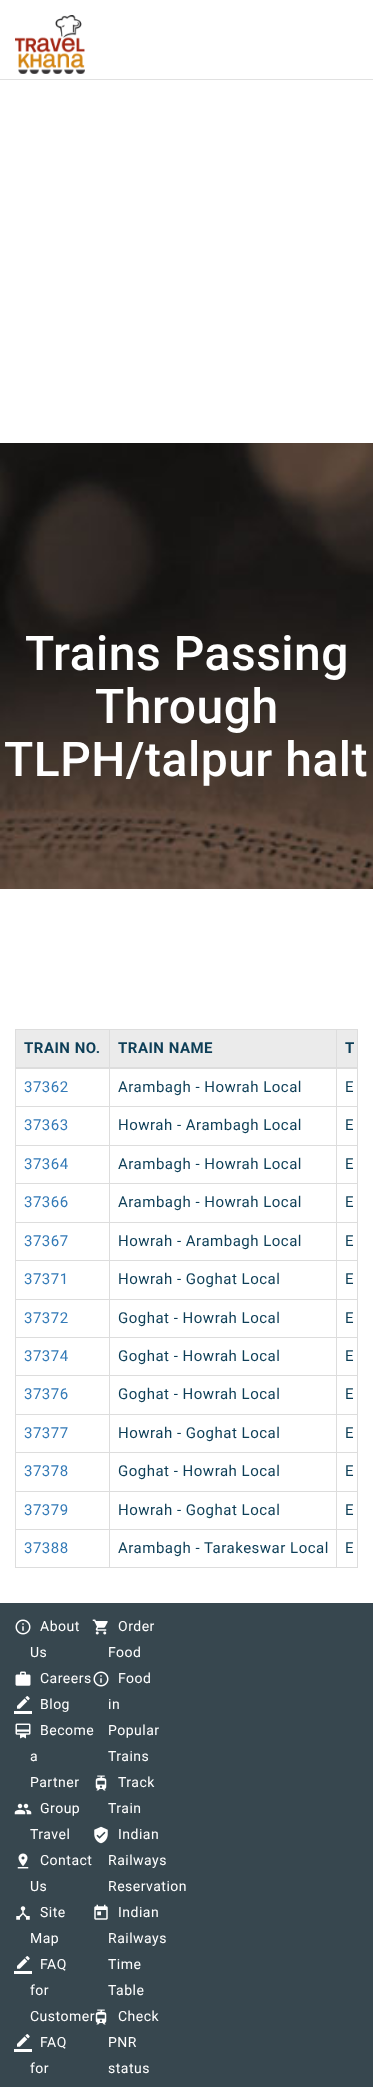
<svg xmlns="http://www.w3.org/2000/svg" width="373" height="2087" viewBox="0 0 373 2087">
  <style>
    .t1 { font: 500 48px Roboto; letter-spacing: 0.5px; fill: #fff; }
    .t2 { font: bold 15px Roboto; letter-spacing: 0.5px; fill: #0d3e57; }
    .t3 { font: 15px Roboto; letter-spacing: 0.5px; fill: #337ab7; }
    .t4 { font: 15px Roboto; letter-spacing: 0.5px; fill: #0d3e57; }
    .t5 { font: 14px Roboto; letter-spacing: 0.5px; fill: #fff; }
  </style>
  <rect width="100%" height="100%" fill="#fff"/>
  <rect x="0" y="79" width="373" height="1" fill="#e1e1e1"/>
  <image x="15" y="15" width="70" height="59" href="images/1.png"/>
  <image x="0" y="443" width="373" height="446" href="images/2.png"/>
  <text x="25" y="670" class="t1">Trains Passing</text>
  <text x="95" y="723" class="t1">Through</text>
  <text x="4" y="776" class="t1">TLPH/talpur halt</text>
  <rect x="15.5" y="1029.5" width="342" height="538" fill="none" stroke="#ddd"/>
  <rect x="16" y="1030" width="341" height="37" fill="#ebebeb"/>
  <text x="24" y="1053" class="t2">TRAIN NO.</text>
  <text x="118" y="1053" class="t2">TRAIN NAME</text>
  <rect x="336" y="1106" width="21" height="1" fill="#ddd"/>
  <rect x="336" y="1145" width="21" height="1" fill="#ddd"/>
  <rect x="336" y="1183" width="21" height="1" fill="#ddd"/>
  <rect x="336" y="1222" width="21" height="1" fill="#ddd"/>
  <rect x="336" y="1260" width="21" height="1" fill="#ddd"/>
  <rect x="336" y="1299" width="21" height="1" fill="#ddd"/>
  <rect x="336" y="1337" width="21" height="1" fill="#ddd"/>
  <rect x="336" y="1375" width="21" height="1" fill="#ddd"/>
  <rect x="336" y="1414" width="21" height="1" fill="#ddd"/>
  <rect x="336" y="1452" width="21" height="1" fill="#ddd"/>
  <rect x="336" y="1491" width="21" height="1" fill="#ddd"/>
  <rect x="336" y="1529" width="21" height="1" fill="#ddd"/>
  <rect x="336" y="1529" width="1" height="38" fill="#ddd"/>
  <rect x="109" y="1529" width="228" height="1" fill="#ddd"/>
  <rect x="336" y="1491" width="1" height="39" fill="#ddd"/>
  <rect x="109" y="1491" width="228" height="1" fill="#ddd"/>
  <rect x="336" y="1452" width="1" height="40" fill="#ddd"/>
  <rect x="109" y="1452" width="228" height="1" fill="#ddd"/>
  <rect x="336" y="1414" width="1" height="39" fill="#ddd"/>
  <rect x="109" y="1414" width="228" height="1" fill="#ddd"/>
  <rect x="336" y="1375" width="1" height="40" fill="#ddd"/>
  <rect x="109" y="1375" width="228" height="1" fill="#ddd"/>
  <rect x="336" y="1337" width="1" height="39" fill="#ddd"/>
  <rect x="109" y="1337" width="228" height="1" fill="#ddd"/>
  <rect x="336" y="1299" width="1" height="39" fill="#ddd"/>
  <rect x="109" y="1299" width="228" height="1" fill="#ddd"/>
  <rect x="336" y="1260" width="1" height="40" fill="#ddd"/>
  <rect x="109" y="1260" width="228" height="1" fill="#ddd"/>
  <rect x="336" y="1222" width="1" height="39" fill="#ddd"/>
  <rect x="109" y="1222" width="228" height="1" fill="#ddd"/>
  <rect x="336" y="1183" width="1" height="40" fill="#ddd"/>
  <rect x="109" y="1183" width="228" height="1" fill="#ddd"/>
  <rect x="336" y="1145" width="1" height="39" fill="#ddd"/>
  <rect x="109" y="1145" width="228" height="1" fill="#ddd"/>
  <rect x="336" y="1106" width="1" height="40" fill="#ddd"/>
  <rect x="109" y="1106" width="228" height="1" fill="#ddd"/>
  <rect x="109" y="1529" width="1" height="38" fill="#ddd"/>
  <rect x="16" y="1529" width="94" height="1" fill="#ddd"/>
  <rect x="109" y="1491" width="1" height="39" fill="#ddd"/>
  <rect x="16" y="1491" width="94" height="1" fill="#ddd"/>
  <rect x="109" y="1452" width="1" height="40" fill="#ddd"/>
  <rect x="16" y="1452" width="94" height="1" fill="#ddd"/>
  <rect x="109" y="1414" width="1" height="39" fill="#ddd"/>
  <rect x="16" y="1414" width="94" height="1" fill="#ddd"/>
  <rect x="109" y="1375" width="1" height="40" fill="#ddd"/>
  <rect x="16" y="1375" width="94" height="1" fill="#ddd"/>
  <rect x="109" y="1337" width="1" height="39" fill="#ddd"/>
  <rect x="16" y="1337" width="94" height="1" fill="#ddd"/>
  <rect x="109" y="1299" width="1" height="39" fill="#ddd"/>
  <rect x="16" y="1299" width="94" height="1" fill="#ddd"/>
  <rect x="109" y="1260" width="1" height="40" fill="#ddd"/>
  <rect x="16" y="1260" width="94" height="1" fill="#ddd"/>
  <rect x="109" y="1222" width="1" height="39" fill="#ddd"/>
  <rect x="16" y="1222" width="94" height="1" fill="#ddd"/>
  <rect x="109" y="1183" width="1" height="40" fill="#ddd"/>
  <rect x="16" y="1183" width="94" height="1" fill="#ddd"/>
  <rect x="109" y="1145" width="1" height="39" fill="#ddd"/>
  <rect x="16" y="1145" width="94" height="1" fill="#ddd"/>
  <rect x="109" y="1106" width="1" height="40" fill="#ddd"/>
  <rect x="16" y="1106" width="94" height="1" fill="#ddd"/>
  <rect x="109" y="1030" width="1" height="77" fill="#ddd"/>
  <rect x="336" y="1030" width="1" height="77" fill="#ddd"/>
  <rect x="16" y="1067" width="341" height="2" fill="#ddd"/>
  <text x="345" y="1053" class="t2">T</text>
  <text x="24" y="1092" class="t3">37362</text>
  <text x="118" y="1092" class="t4">Arambagh - Howrah Local</text>
  <text x="345" y="1092" class="t4">E</text>
  <text x="24" y="1130" class="t3">37363</text>
  <text x="118" y="1130" class="t4">Howrah - Arambagh Local</text>
  <text x="345" y="1130" class="t4">E</text>
  <text x="24" y="1169" class="t3">37364</text>
  <text x="118" y="1169" class="t4">Arambagh - Howrah Local</text>
  <text x="345" y="1169" class="t4">E</text>
  <text x="24" y="1207" class="t3">37366</text>
  <text x="118" y="1207" class="t4">Arambagh - Howrah Local</text>
  <text x="345" y="1207" class="t4">E</text>
  <text x="24" y="1246" class="t3">37367</text>
  <text x="118" y="1246" class="t4">Howrah - Arambagh Local</text>
  <text x="345" y="1246" class="t4">E</text>
  <text x="24" y="1284" class="t3">37371</text>
  <text x="118" y="1284" class="t4">Howrah - Goghat Local</text>
  <text x="345" y="1284" class="t4">E</text>
  <text x="24" y="1323" class="t3">37372</text>
  <text x="118" y="1323" class="t4">Goghat - Howrah Local</text>
  <text x="345" y="1323" class="t4">E</text>
  <text x="24" y="1361" class="t3">37374</text>
  <text x="118" y="1361" class="t4">Goghat - Howrah Local</text>
  <text x="345" y="1361" class="t4">E</text>
  <text x="24" y="1399" class="t3">37376</text>
  <text x="118" y="1399" class="t4">Goghat - Howrah Local</text>
  <text x="345" y="1399" class="t4">E</text>
  <text x="24" y="1438" class="t3">37377</text>
  <text x="118" y="1438" class="t4">Howrah - Goghat Local</text>
  <text x="345" y="1438" class="t4">E</text>
  <text x="24" y="1476" class="t3">37378</text>
  <text x="118" y="1476" class="t4">Goghat - Howrah Local</text>
  <text x="345" y="1476" class="t4">E</text>
  <text x="24" y="1515" class="t3">37379</text>
  <text x="118" y="1515" class="t4">Howrah - Goghat Local</text>
  <text x="345" y="1515" class="t4">E</text>
  <text x="24" y="1553" class="t3">37388</text>
  <text x="118" y="1553" class="t4">Arambagh - Tarakeswar Local</text>
  <text x="345" y="1553" class="t4">E</text>
  <rect x="0" y="1603" width="373" height="484" fill="#37474f"/>
  <image x="15" y="1619" width="16" height="16" href="images/3.png"/>
  <text x="40" y="1631" class="t5">About</text>
  <text x="30" y="1657" class="t5">Us</text>
  <image x="15" y="1671" width="16" height="15" href="images/4.png"/>
  <text x="40" y="1683" class="t5">Careers</text>
  <image x="14" y="1696" width="18" height="18" href="images/5.png"/>
  <text x="40" y="1709" class="t5">Blog</text>
  <image x="15" y="1723" width="16" height="16" href="images/6.png"/>
  <text x="40" y="1735" class="t5">Become</text>
  <text x="30" y="1761" class="t5">a</text>
  <text x="30" y="1787" class="t5">Partner</text>
  <image x="14" y="1803" width="18" height="12" href="images/7.png"/>
  <text x="40" y="1813" class="t5">Group</text>
  <text x="30" y="1839" class="t5">Travel</text>
  <image x="17" y="1853" width="12" height="16" href="images/8.png"/>
  <text x="40" y="1865" class="t5">Contact</text>
  <text x="30" y="1891" class="t5">Us</text>
  <image x="16" y="1906" width="14" height="14" href="images/9.png"/>
  <text x="40" y="1917" class="t5">Site</text>
  <text x="30" y="1943" class="t5">Map</text>
  <image x="14" y="1956" width="18" height="18" href="images/5.png"/>
  <text x="40" y="1969" class="t5">FAQ</text>
  <text x="30" y="1995" class="t5">for</text>
  <text x="30" y="2021" class="t5">Customer</text>
  <image x="14" y="2034" width="18" height="18" href="images/5.png"/>
  <text x="40" y="2047" class="t5">FAQ</text>
  <text x="30" y="2073" class="t5">for</text>
  <image x="92" y="1619" width="16" height="16" href="images/10.png"/>
  <text x="118" y="1631" class="t5">Order</text>
  <text x="108" y="1657" class="t5">Food</text>
  <image x="93" y="1671" width="16" height="16" href="images/3.png"/>
  <text x="118" y="1683" class="t5">Food</text>
  <text x="108" y="1709" class="t5">in</text>
  <text x="108" y="1735" class="t5">Popular</text>
  <text x="108" y="1761" class="t5">Trains</text>
  <image x="95" y="1775" width="12" height="16" href="images/11.png"/>
  <text x="118" y="1787" class="t5">Track</text>
  <text x="108" y="1813" class="t5">Train</text>
  <image x="94" y="1826" width="14" height="18" href="images/12.png"/>
  <text x="118" y="1839" class="t5">Indian</text>
  <text x="108" y="1865" class="t5">Railways</text>
  <text x="108" y="1891" class="t5">Reservation</text>
  <image x="94" y="1904" width="14" height="16" href="images/13.png"/>
  <text x="118" y="1917" class="t5">Indian</text>
  <text x="108" y="1943" class="t5">Railways</text>
  <text x="108" y="1969" class="t5">Time</text>
  <text x="108" y="1995" class="t5">Table</text>
  <image x="95" y="2009" width="12" height="16" href="images/14.png"/>
  <text x="118" y="2021" class="t5">Check</text>
  <text x="108" y="2047" class="t5">PNR</text>
  <text x="108" y="2073" class="t5">status</text>
</svg>
